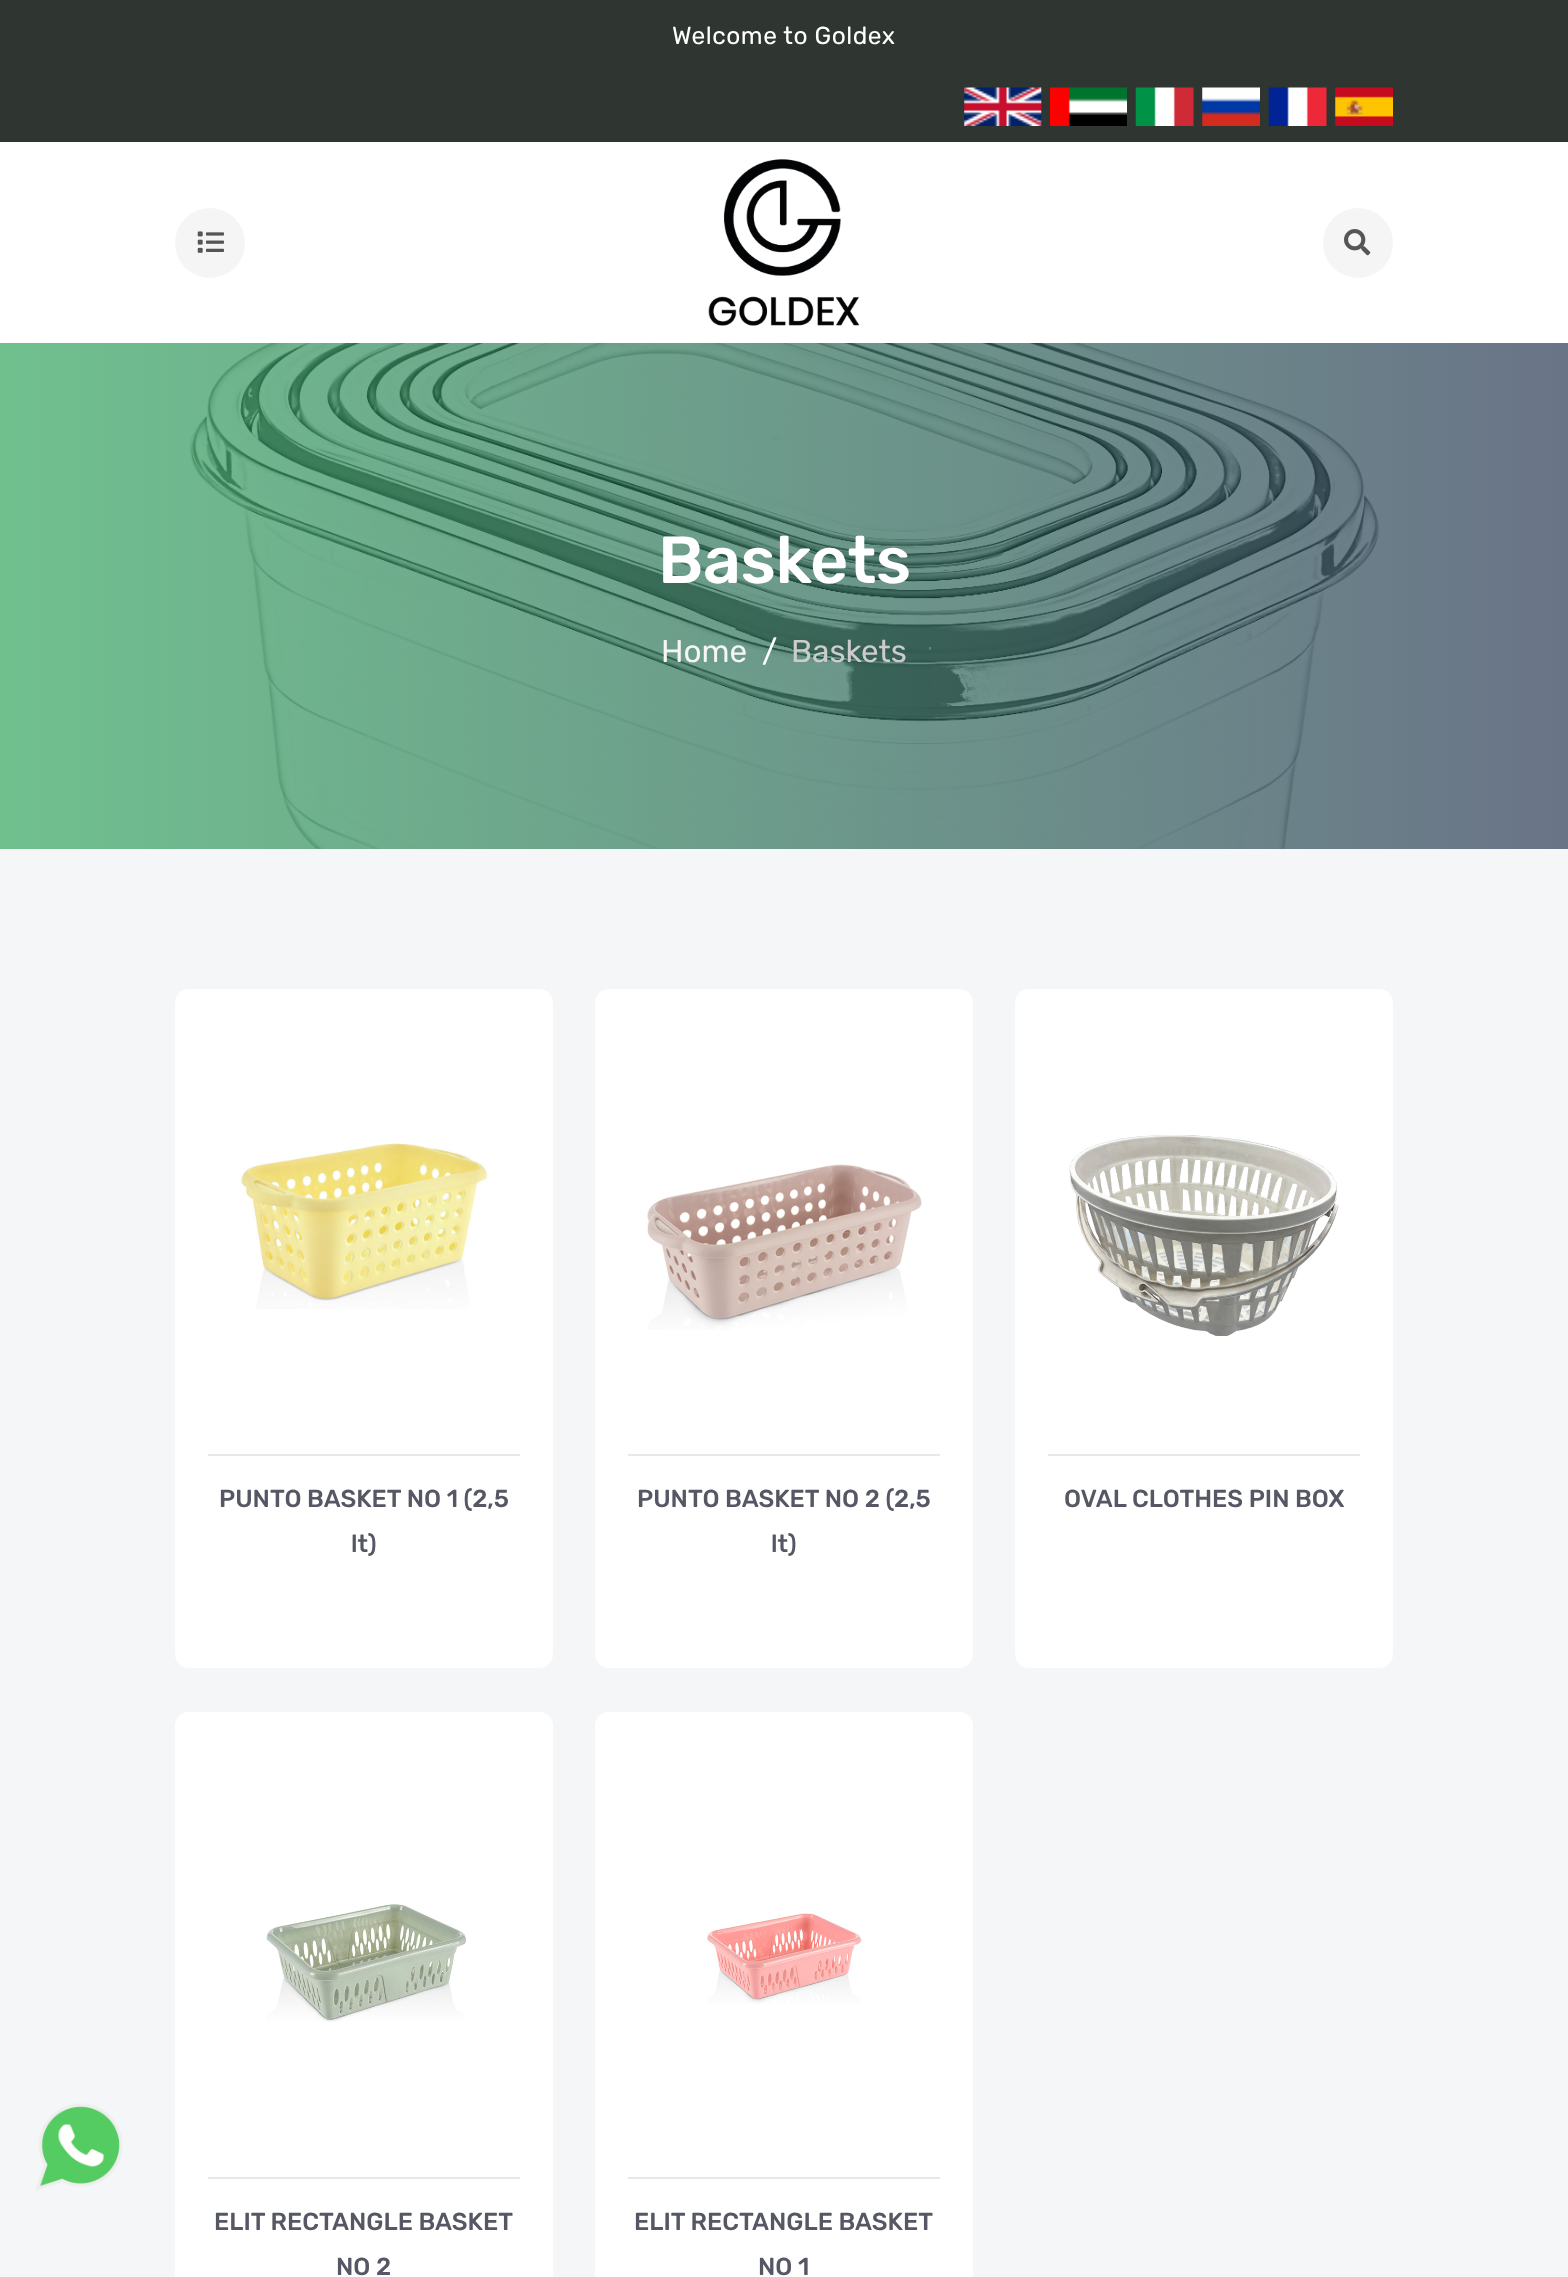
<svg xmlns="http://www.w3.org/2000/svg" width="1568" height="2277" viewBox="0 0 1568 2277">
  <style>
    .t1 { font: 24.5px Rubik; letter-spacing: 0.5px; fill: #fff; }
    .t2 { font: 500 66.5px Rubik; letter-spacing: -0.5px; fill: #fff; }
    .t3 { font: 31.5px Rubik; fill: #f5f5f5; }
    .t4 { font: 31.5px Rubik; fill: #fff; }
    .t5 { font: 31.5px Rubik; fill: #ccc; }
    .t6 { font: 500 24.5px Rubik; fill: #565765; }
  </style>
  <defs>
    <linearGradient id="g1" gradientUnits="userSpaceOnUse" x1="1568" y1="596" x2="0" y2="596"><stop offset="0" stop-color="#061738" stop-opacity="0.6"/><stop offset="1" stop-color="#119744" stop-opacity="0.6"/></linearGradient>
  </defs>
  <rect width="100%" height="100%" fill="#f5f6f7"/>
  <rect x="0" y="0" width="1568" height="142" fill="#2f3631"/>
  <text x="672" y="44" class="t1">Welcome to Goldex</text>
  <image x="964" y="87" width="78" height="39" href="images/1.png"/>
  <image x="1050" y="87" width="77" height="39" href="images/2.png"/>
  <image x="1135" y="87" width="59" height="39" href="images/3.png"/>
  <image x="1202" y="87" width="58" height="39" href="images/4.png"/>
  <image x="1268" y="87" width="59" height="39" href="images/5.png"/>
  <image x="1335" y="87" width="58" height="39" href="images/6.png"/>
  <rect x="0" y="142" width="1568" height="201" fill="#fff"/>
  <circle cx="210" cy="243" r="35" fill="#f5f5f5"/>
  <image x="197" y="231" width="27" height="22" href="images/7.png"/>
  <image x="708" y="159" width="152" height="167" href="images/8.png"/>
  <circle cx="1358" cy="243" r="35" fill="#f5f5f5"/>
  <image x="1344" y="229" width="27" height="27" href="images/9.png"/>
  <image x="0" y="343" width="1568" height="506" href="images/10.png"/>
  <rect x="0" y="343" width="1568" height="506" fill="url(#g1)"/>
  <text x="658" y="583" class="t2">Baskets</text>
  <text x="661" y="662" class="t3">Home</text>
  <text x="762" y="662" class="t4">/</text>
  <text x="791" y="662" class="t5">Baskets</text>
  <image x="35" y="2103" width="88" height="88" href="images/11.png"/>
  <rect x="175" y="989" width="378" height="679" rx="14" fill="#fff"/>
  <image x="240" y="1143" width="248" height="166" href="images/12.png"/>
  <rect x="208" y="1454" width="312" height="2" fill="#e8e8e8"/>
  <text x="219" y="1507" class="t6">PUNTO BASKET NO 1 (2,5</text>
  <text x="351" y="1552" class="t6">lt)</text>
  <rect x="595" y="989" width="378" height="679" rx="14" fill="#fff"/>
  <image x="647" y="1164" width="275" height="166" href="images/13.png"/>
  <rect x="628" y="1454" width="312" height="2" fill="#e8e8e8"/>
  <text x="637" y="1507" class="t6">PUNTO BASKET NO 2 (2,5</text>
  <text x="771" y="1552" class="t6">lt)</text>
  <rect x="1015" y="989" width="378" height="679" rx="14" fill="#fff"/>
  <image x="1069" y="1135" width="270" height="201" href="images/14.png"/>
  <rect x="1048" y="1454" width="312" height="2" fill="#e8e8e8"/>
  <text x="1064" y="1507" class="t6">OVAL CLOTHES PIN BOX</text>
  <rect x="175" y="1712" width="378" height="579" rx="14" fill="#fff"/>
  <image x="266" y="1904" width="201" height="118" href="images/15.png"/>
  <rect x="208" y="2177" width="312" height="2" fill="#e8e8e8"/>
  <text x="214" y="2230" class="t6">ELIT RECTANGLE BASKET</text>
  <text x="336" y="2275" class="t6">NO 2</text>
  <rect x="595" y="1712" width="378" height="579" rx="14" fill="#fff"/>
  <image x="707" y="1911" width="156" height="93" href="images/16.png"/>
  <rect x="628" y="2177" width="312" height="2" fill="#e8e8e8"/>
  <text x="634" y="2230" class="t6">ELIT RECTANGLE BASKET</text>
  <text x="758" y="2275" class="t6">NO 1</text>
</svg>
